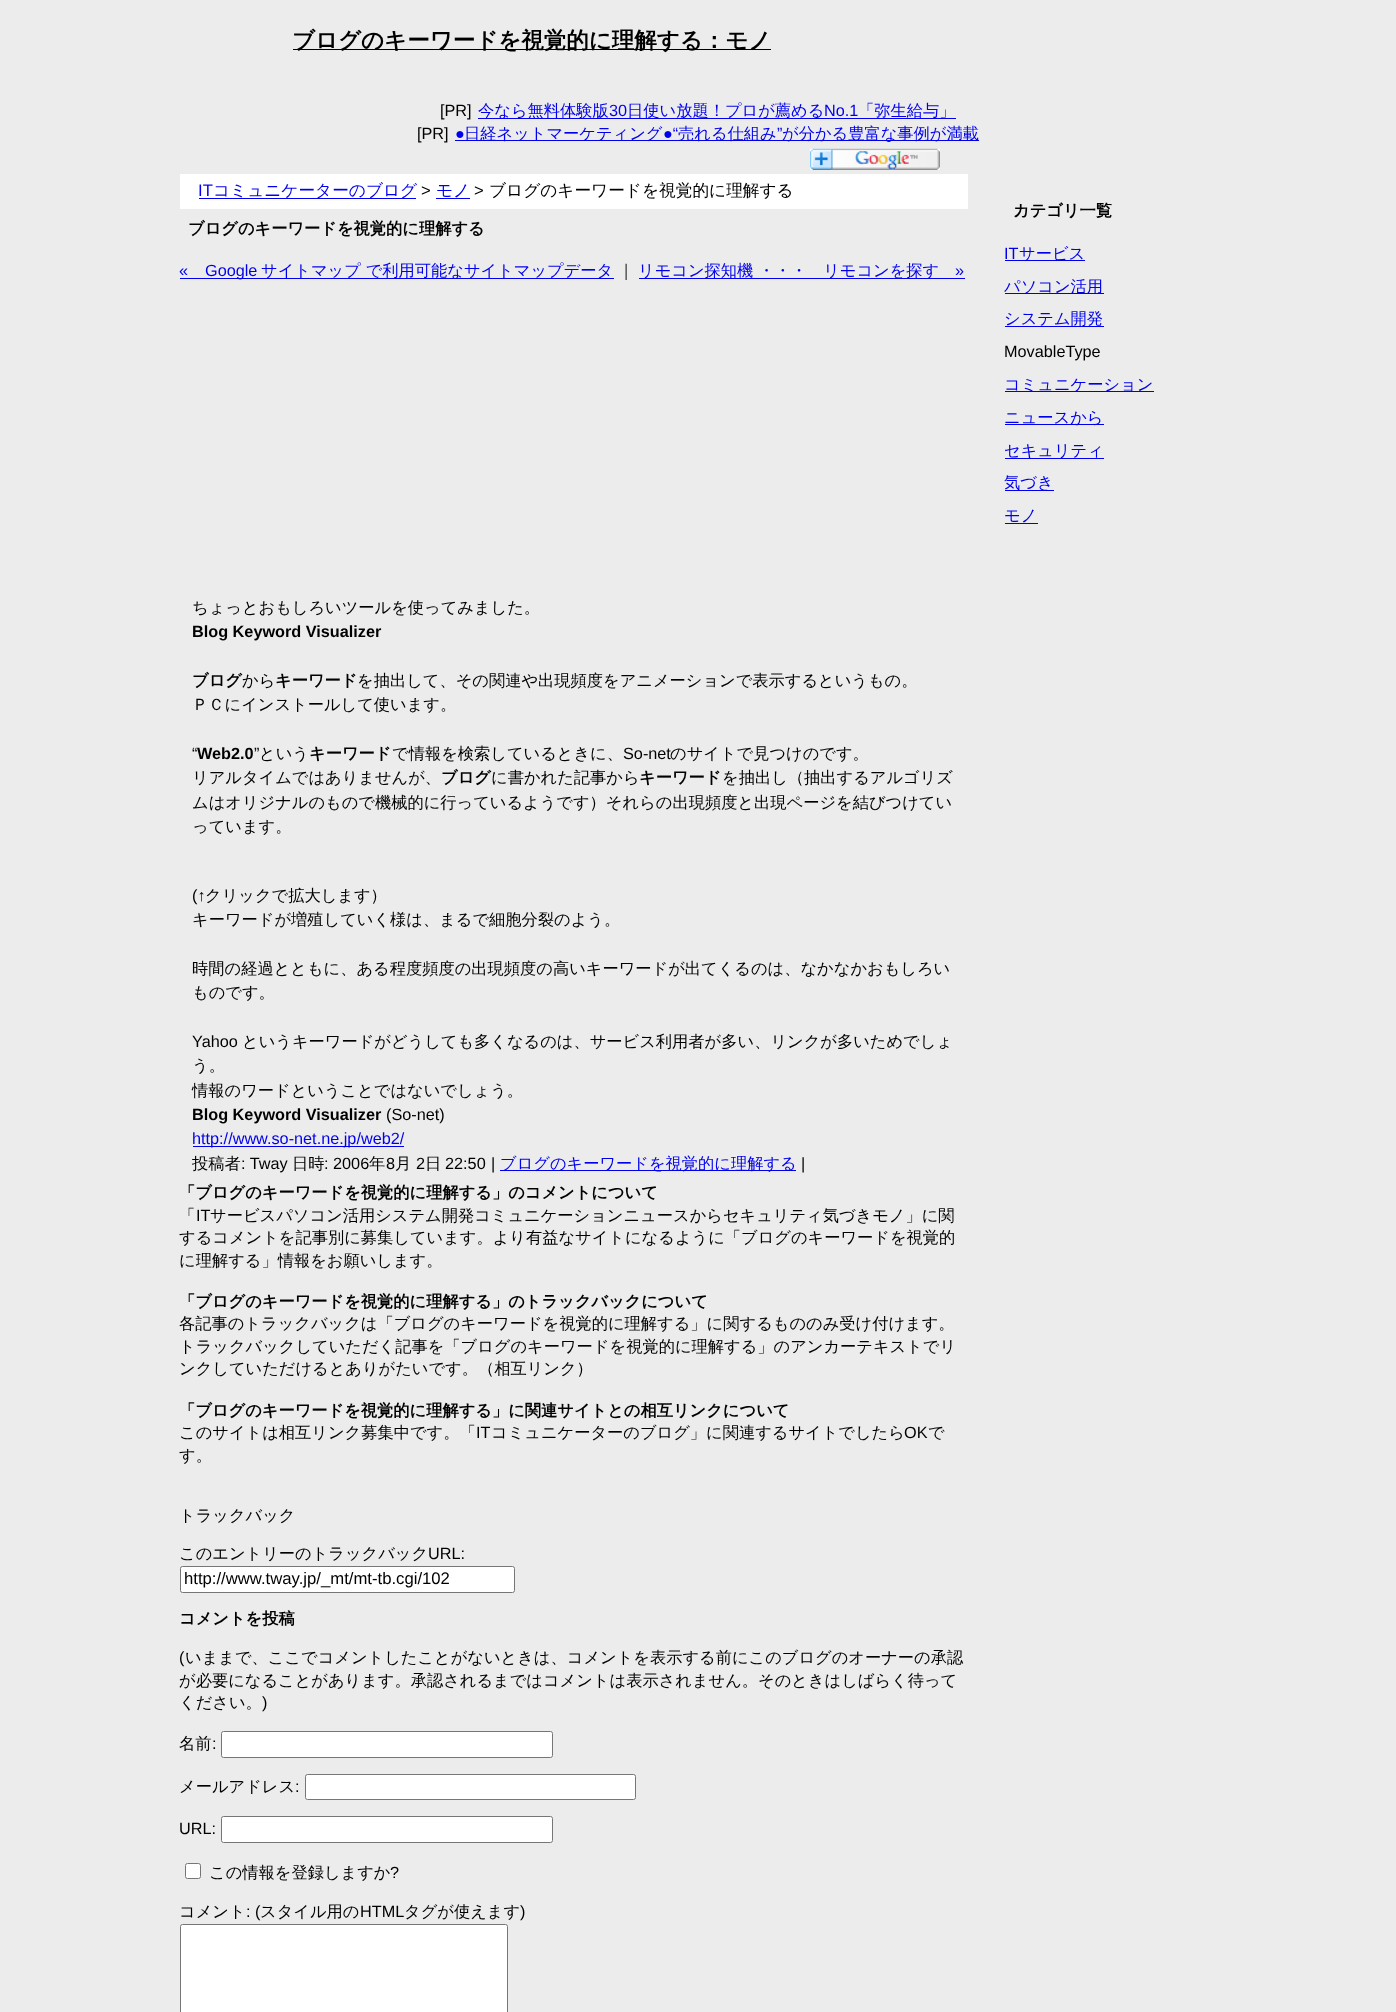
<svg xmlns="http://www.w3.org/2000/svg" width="1396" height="2012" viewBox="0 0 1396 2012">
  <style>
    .t1 { font: bold 22.5px WenQuanYi Zen Hei; fill: #000; }
    .t2 { font: 16.25px Liberation Sans; fill: #000; }
    .t3 { font: 500 16.25px WenQuanYi Zen Hei; fill: #00e; }
    .t4 { font: 16.25px Liberation Sans; fill: #00e; }
    .t5 { font: 16.7px Liberation Sans; fill: #00e; }
    .t6 { font: 500 16.7px WenQuanYi Zen Hei; fill: #00e; }
    .t7 { font: 16.7px Liberation Sans; fill: #000; }
    .t8 { font: 500 16.7px WenQuanYi Zen Hei; fill: #000; }
    .t9 { font: bold 16.25px WenQuanYi Zen Hei; fill: #000; }
    .t10 { font: 500 16.25px WenQuanYi Zen Hei; fill: #000; }
    .t11 { font: bold 16.25px Liberation Sans; fill: #000; }
  </style>
  <rect width="100%" height="100%" fill="#ececec"/>
  <rect x="293" y="49" width="478" height="1" fill="#000"/>
  <text x="292" y="48" class="t1">ブログのキーワードを視覚的に理解する：モノ</text>
  <text x="440" y="116" class="t2">[PR]</text>
  <rect x="478" y="118" width="478" height="1" fill="#00e"/>
  <text x="478" y="116" class="t3">今なら無料体験版</text>
  <text x="609" y="116" class="t4">30</text>
  <text x="627" y="116" class="t3">日使い放題！プロが薦める</text>
  <text x="824" y="116" class="t4">No.1</text>
  <text x="858" y="116" class="t3">「弥生給与」</text>
  <text x="417" y="139" class="t2">[PR]</text>
  <rect x="455" y="140" width="524" height="1" fill="#00e"/>
  <text x="464" y="139" class="t3">日経ネットマーケティング</text>
  <text x="663" y="139" class="t4">●“</text>
  <text x="678" y="139" class="t3">売れる仕組み</text>
  <text x="777" y="139" class="t4">”</text>
  <text x="782" y="139" class="t3">が分かる豊富な事例が満載</text>
  <text x="455" y="139" class="t4">●</text>
  <image x="810" y="148" width="130" height="22" href="images/1.png"/>
  <rect x="180" y="174" width="788" height="35" fill="#fff"/>
  <text x="198" y="196" class="t5">IT</text>
  <rect x="199" y="198" width="217" height="1" fill="#00e"/>
  <text x="213" y="196" class="t6">コミュニケーターのブログ</text>
  <text x="421" y="196" class="t7">&gt;</text>
  <text x="436" y="196" class="t6">モノ</text>
  <rect x="436" y="198" width="34" height="1" fill="#00e"/>
  <text x="474" y="196" class="t7">&gt;</text>
  <text x="489" y="196" class="t8">ブログのキーワードを視覚的に理解する</text>
  <text x="188" y="234" class="t9">ブログのキーワードを視覚的に理解する</text>
  <text x="179" y="276" class="t4">«</text>
  <rect x="180" y="278" width="434" height="1" fill="#00e"/>
  <text x="205" y="276" class="t4">Google</text>
  <text x="261" y="276" class="t3">サイトマップ で利用可能なサイトマップデータ</text>
  <text x="618" y="276" class="t10">｜</text>
  <rect x="639" y="278" width="326" height="1" fill="#00e"/>
  <text x="638" y="276" class="t3">リモコン探知機 ・・・　リモコンを探す</text>
  <text x="955" y="276" class="t4">»</text>
  <text x="192" y="613" class="t10">ちょっとおもしろいツールを使ってみました。</text>
  <text x="192" y="637" class="t11">Blog Keyword Visualizer</text>
  <text x="192" y="686" class="t9">ブログ</text>
  <text x="242" y="686" class="t10">から</text>
  <text x="275" y="686" class="t9">キーワード</text>
  <text x="357" y="686" class="t10">を抽出して、その関連や出現頻度をアニメーションで表示するというもの。</text>
  <text x="192" y="710" class="t10">ＰＣにインストールして使います。</text>
  <text x="192" y="759" class="t2">“</text>
  <text x="197" y="759" class="t11">Web2.0</text>
  <text x="254" y="759" class="t2">”</text>
  <text x="259" y="759" class="t10">という</text>
  <text x="309" y="759" class="t9">キーワード</text>
  <text x="392" y="759" class="t10">で情報を検索しているときに、</text>
  <text x="623" y="759" class="t2">So-net</text>
  <text x="670" y="759" class="t10">のサイトで見つけのです。</text>
  <text x="192" y="783" class="t10">リアルタイムではありませんが、</text>
  <text x="441" y="783" class="t9">ブログ</text>
  <text x="491" y="783" class="t10">に書かれた記事から</text>
  <text x="639" y="783" class="t9">キーワード</text>
  <text x="722" y="783" class="t10">を抽出し（抽出するアルゴリズ</text>
  <text x="192" y="808" class="t10">ムはオリジナルのもので機械的に行っているようです）それらの出現頻度と出現ページを結びつけてい</text>
  <text x="192" y="832" class="t10">っています。</text>
  <text x="192" y="901" class="t2">(↑</text>
  <text x="205" y="901" class="t10">クリックで拡大します）</text>
  <text x="192" y="925" class="t10">キーワードが増殖していく様は、まるで細胞分裂のよう。</text>
  <text x="192" y="974" class="t10">時間の経過とともに、ある程度頻度の出現頻度の高いキーワードが出てくるのは、なかなかおもしろい</text>
  <text x="192" y="998" class="t10">ものです。</text>
  <text x="192" y="1047" class="t2">Yahoo</text>
  <text x="242" y="1047" class="t10">というキーワードがどうしても多くなるのは、サービス利用者が多い、リンクが多いためでしょ</text>
  <text x="192" y="1071" class="t10">う。</text>
  <text x="192" y="1096" class="t10">情報のワードということではないでしょう。</text>
  <text x="192" y="1120" class="t11">Blog Keyword Visualizer</text>
  <text x="386" y="1120" class="t2">(So-net)</text>
  <rect x="193" y="1146" width="211" height="1" fill="#00e"/>
  <text x="192" y="1144" class="t4">http://www.so-net.ne.jp/web2/</text>
  <text x="192" y="1169" class="t10">投稿者</text>
  <text x="241" y="1169" class="t2">: Tway</text>
  <text x="292" y="1169" class="t10">日時</text>
  <text x="324" y="1169" class="t2">: 2006</text>
  <text x="369" y="1169" class="t10">年</text>
  <text x="386" y="1169" class="t2">8</text>
  <text x="395" y="1169" class="t10">月</text>
  <text x="416" y="1169" class="t2">2</text>
  <text x="425" y="1169" class="t10">日</text>
  <text x="445" y="1169" class="t2">22:50</text>
  <text x="491" y="1169" class="t2">|</text>
  <rect x="500" y="1170" width="296" height="1" fill="#00e"/>
  <text x="500" y="1169" class="t3">ブログのキーワードを視覚的に理解する</text>
  <text x="801" y="1169" class="t2">|</text>
  <text x="179" y="1198" class="t9">「ブログのキーワードを視覚的に理解する」のコメントについて</text>
  <text x="179" y="1221" class="t10">「</text>
  <text x="196" y="1221" class="t2">IT</text>
  <text x="210" y="1221" class="t10">サービスパソコン活用システム開発コミュニケーションニュースからセキュリティ気づきモノ」に関</text>
  <text x="179" y="1243" class="t10">するコメントを記事別に募集しています。より有益なサイトになるように「ブログのキーワードを視覚的</text>
  <text x="179" y="1266" class="t10">に理解する」情報をお願いします。</text>
  <text x="179" y="1307" class="t9">「ブログのキーワードを視覚的に理解する」のトラックバックについて</text>
  <text x="179" y="1329" class="t10">各記事のトラックバックは「ブログのキーワードを視覚的に理解する」に関するもののみ受け付けます。</text>
  <text x="179" y="1352" class="t10">トラックバックしていただく記事を「ブログのキーワードを視覚的に理解する」のアンカーテキストでリ</text>
  <text x="179" y="1374" class="t10">ンクしていただけるとありがたいです。（相互リンク）</text>
  <text x="179" y="1416" class="t9">「ブログのキーワードを視覚的に理解する」に関連サイトとの相互リンクについて</text>
  <text x="179" y="1438" class="t10">このサイトは相互リンク募集中です。「</text>
  <text x="476" y="1438" class="t2">IT</text>
  <text x="491" y="1438" class="t10">コミュニケーターのブログ」に関連するサイトでしたら</text>
  <text x="904" y="1438" class="t2">OK</text>
  <text x="928" y="1438" class="t10">で</text>
  <text x="179" y="1461" class="t10">す。</text>
  <text x="179" y="1521" class="t10">トラックバック</text>
  <text x="179" y="1559" class="t10">このエントリーのトラックバック</text>
  <text x="428" y="1559" class="t2">URL:</text>
  <rect x="180.5" y="1566.5" width="334" height="26" rx="2" fill="#fff" stroke="#767676"/>
  <text x="184" y="1584" class="t7">http://www.tway.jp/_mt/mt-tb.cgi/102</text>
  <text x="179" y="1624" class="t9">コメントを投稿</text>
  <text x="179" y="1663" class="t2">(</text>
  <text x="185" y="1663" class="t10">いままで、ここでコメントしたことがないときは、コメントを表示する前にこのブログのオーナーの承認</text>
  <text x="179" y="1686" class="t10">が必要になることがあります。承認されるまではコメントは表示されません。そのときはしばらく待って</text>
  <text x="179" y="1708" class="t10">ください。</text>
  <text x="262" y="1708" class="t2">)</text>
  <text x="179" y="1749" class="t10">名前</text>
  <text x="212" y="1749" class="t2">:</text>
  <rect x="221.5" y="1731.5" width="331" height="26" rx="2" fill="#fff" stroke="#767676"/>
  <text x="179" y="1792" class="t10">メールアドレス</text>
  <text x="295" y="1792" class="t2">:</text>
  <rect x="305.5" y="1774.5" width="330" height="25" rx="2" fill="#fff" stroke="#767676"/>
  <text x="179" y="1834" class="t2">URL:</text>
  <rect x="221.5" y="1816.5" width="331" height="26" rx="2" fill="#fff" stroke="#767676"/>
  <rect x="185.5" y="1863.5" width="15" height="15" rx="2" fill="#fff" stroke="#767676"/>
  <text x="209" y="1878" class="t10">この情報を登録しますか</text>
  <text x="390" y="1878" class="t2">?</text>
  <text x="179" y="1917" class="t10">コメント</text>
  <text x="246" y="1917" class="t2">: (</text>
  <text x="260" y="1917" class="t10">スタイル用の</text>
  <text x="360" y="1917" class="t2">HTML</text>
  <text x="404" y="1917" class="t10">タグが使えます</text>
  <text x="520" y="1917" class="t2">)</text>
  <rect x="180.5" y="1924.5" width="327" height="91" rx="2" fill="#fff" stroke="#767676"/>
  <text x="1013" y="216" class="t9">カテゴリ一覧</text>
  <text x="1004" y="259" class="t4">IT</text>
  <rect x="1005" y="260" width="80" height="1" fill="#00e"/>
  <text x="1019" y="259" class="t3">サービス</text>
  <rect x="1005" y="293" width="99" height="1" fill="#00e"/>
  <text x="1004" y="292" class="t3">パソコン活用</text>
  <rect x="1005" y="326" width="99" height="1" fill="#00e"/>
  <text x="1004" y="324" class="t3">システム開発</text>
  <text x="1004" y="357" class="t2">MovableType</text>
  <rect x="1005" y="391" width="149" height="1" fill="#00e"/>
  <text x="1004" y="390" class="t3">コミュニケーション</text>
  <rect x="1005" y="424" width="99" height="1" fill="#00e"/>
  <text x="1004" y="423" class="t3">ニュースから</text>
  <rect x="1005" y="458" width="99" height="1" fill="#00e"/>
  <text x="1004" y="456" class="t3">セキュリティ</text>
  <rect x="1005" y="490" width="49" height="1" fill="#00e"/>
  <text x="1004" y="488" class="t3">気づき</text>
  <text x="1004" y="521" class="t3">モノ</text>
  <rect x="1005" y="523" width="33" height="1" fill="#00e"/>
</svg>
